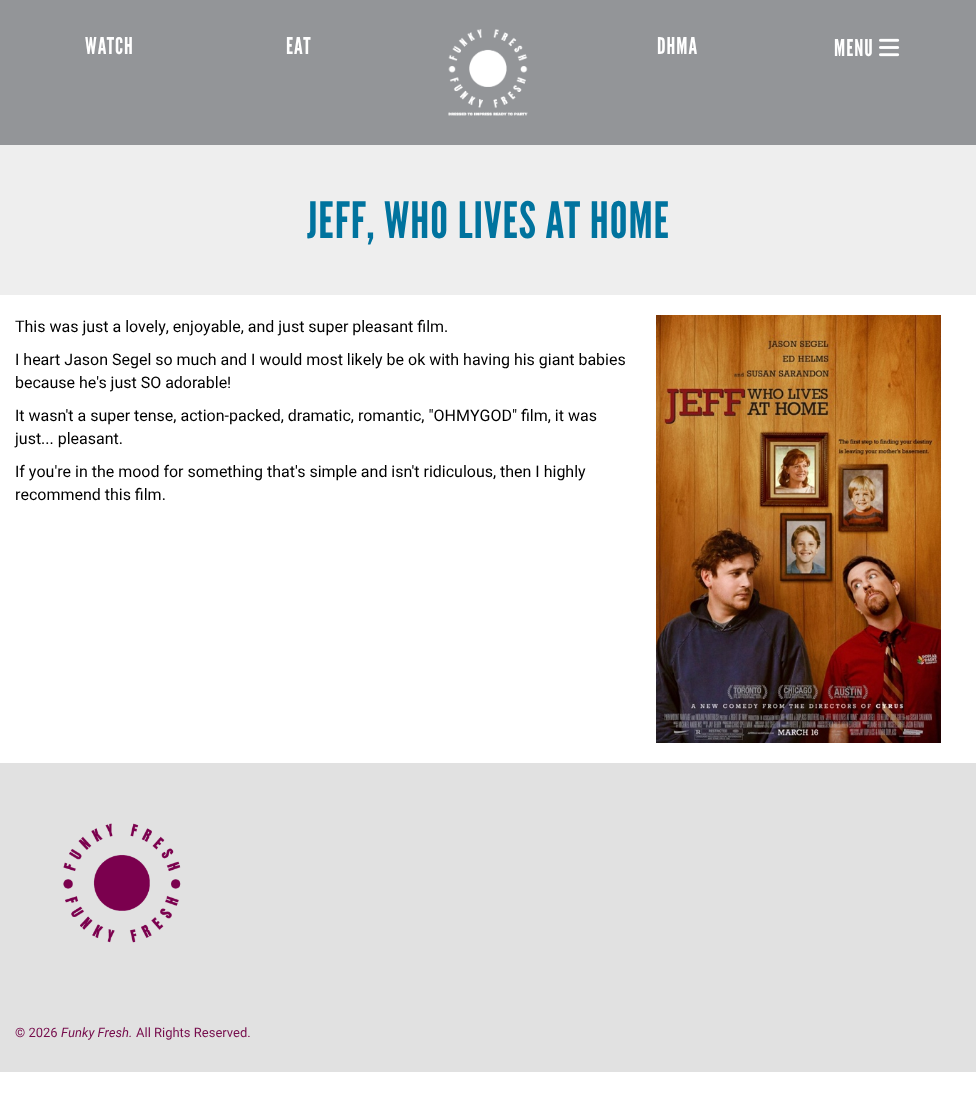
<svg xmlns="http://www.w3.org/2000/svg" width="976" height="1094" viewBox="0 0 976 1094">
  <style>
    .t1 { font: 23px League Gothic; letter-spacing: 1px; fill: #fff; }
    .t2 { font: 50px League Gothic; letter-spacing: 1px; fill: #00739e; }
    .t3 { font: 16px Roboto; fill: #000; }
    .t4 { font: 13px Roboto; fill: #760c4c; }
    .t5 { font: italic 13px Roboto; fill: #760c4c; }
  </style>
  <rect width="100%" height="100%" fill="#fff"/>
  <rect x="0" y="0" width="976" height="145" fill="#939598"/>
  <text x="85" y="54" class="t1">WATCH</text>
  <text x="286" y="54" class="t1">EAT</text>
  <image x="448" y="29" width="80" height="87" href="images/1.png"/>
  <text x="657" y="54" class="t1">DHMA</text>
  <text x="834" y="56" class="t1">MENU</text>
  <image x="879" y="38" width="21" height="19" href="images/2.png"/>
  <rect x="0" y="145" width="976" height="150" fill="#eee"/>
  <text x="307" y="238" class="t2">JEFF, WHO LIVES AT HOME</text>
  <text x="15" y="332" class="t3">This was just a lovely, enjoyable, and just super pleasant film.</text>
  <image x="656" y="315" width="285" height="428" href="images/3.png"/>
  <text x="15" y="365" class="t3">I heart Jason Segel so much and I would most likely be ok with having his giant babies</text>
  <text x="15" y="388" class="t3">because he's just SO adorable!</text>
  <text x="15" y="421" class="t3">It wasn't a super tense, action-packed, dramatic, romantic, "OHMYGOD" film, it was</text>
  <text x="15" y="444" class="t3">just... pleasant.</text>
  <text x="15" y="477" class="t3">If you're in the mood for something that's simple and isn't ridiculous, then I highly</text>
  <text x="15" y="500" class="t3">recommend this film.</text>
  <rect x="0" y="763" width="976" height="309" fill="#e1e1e1"/>
  <image x="63" y="823" width="118" height="120" href="images/4.png"/>
  <text x="15" y="1037" class="t4">© 2026</text>
  <text x="61" y="1037" class="t5">Funky Fresh.</text>
  <text x="136" y="1037" class="t4">All Rights Reserved.</text>
</svg>
